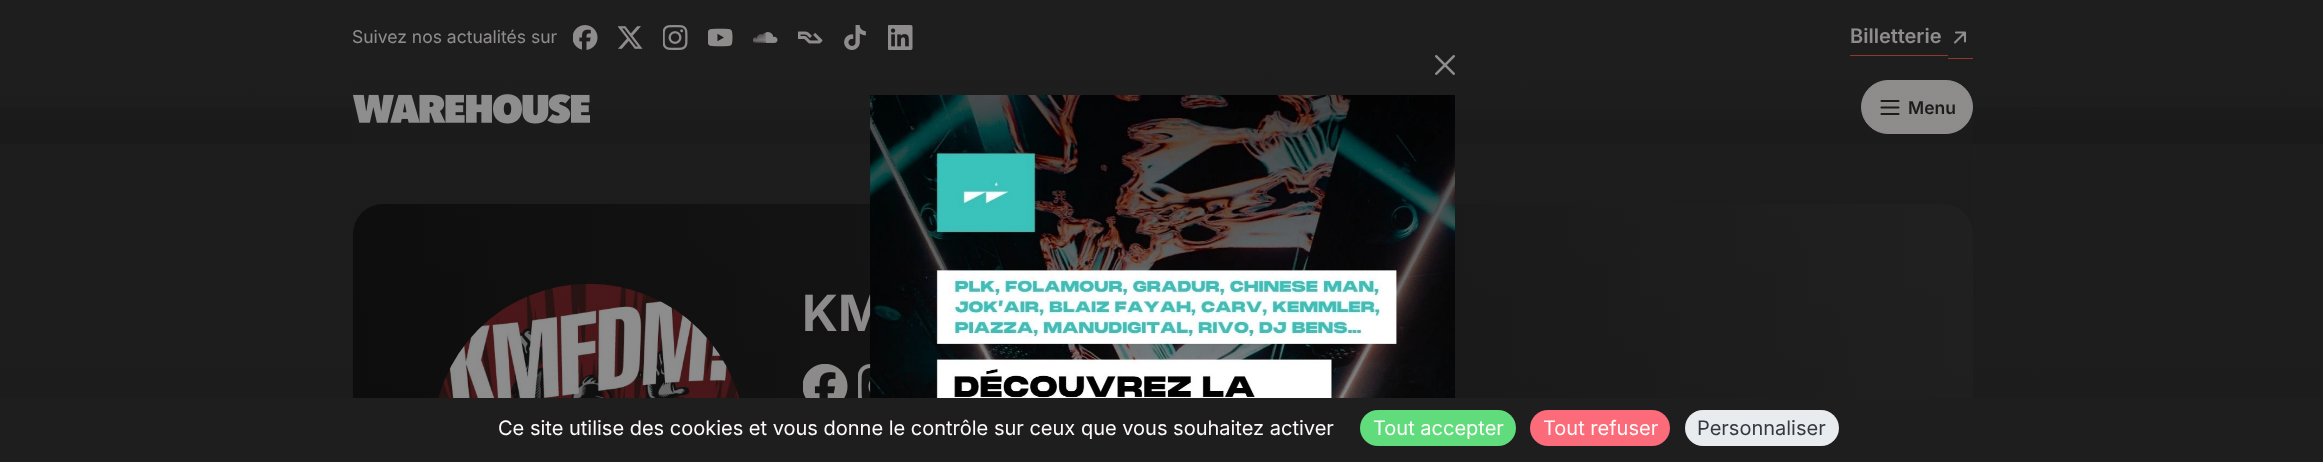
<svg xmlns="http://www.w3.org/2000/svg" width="2323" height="462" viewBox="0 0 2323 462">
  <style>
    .t1 { font: 17.5px Inter; fill: #fffafa; }
    .t2 { font: 600 20px Inter; fill: #fffafa; }
    .t3 { font: 600 17.5px Inter; fill: #191919; }
    .t4 { font: bold 50px Inter; fill: #fffafa; }
    .t5 { font: 20px Inter; fill: #fffafa; }
    .t6 { font: 20px Inter; fill: #343a40; }
  </style>
  <defs>
    <linearGradient id="g1" gradientUnits="userSpaceOnUse" x1="1162" y1="0" x2="1162" y2="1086"><stop offset="0" stop-color="#1e1e1e"/><stop offset="1" stop-color="#191919"/></linearGradient>
    <linearGradient id="g2" gradientUnits="userSpaceOnUse" x1="1162" y1="70" x2="1162" y2="144"><stop offset="0" stop-color="#1e1e1e"/><stop offset="1" stop-color="#191919"/></linearGradient>
    <linearGradient id="g3" gradientUnits="userSpaceOnUse" x1="353" y1="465" x2="1973" y2="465"><stop offset="0" stop-color="#000"/><stop offset="1" stop-color="#252525"/></linearGradient>
    <linearGradient id="g4" gradientUnits="userSpaceOnUse" x1="1162" y1="0" x2="1162" y2="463"><stop offset="0" stop-color="#1e1e1e" stop-opacity="0.5"/><stop offset="1" stop-color="#191919" stop-opacity="0.5"/></linearGradient>
  </defs>
  <rect width="100%" height="100%" fill="#fff"/>
  <rect x="0" y="0" width="2323" height="398" fill="url(#g1)"/>
  <text x="352" y="43" class="t1">Suivez nos actualités sur</text>
  <image x="573" y="25" width="25" height="25" href="images/1.png"/>
  <image x="618" y="26" width="25" height="23" href="images/2.png"/>
  <image x="663" y="25" width="25" height="25" href="images/3.png"/>
  <image x="708" y="28" width="25" height="19" href="images/4.png"/>
  <image x="753" y="32" width="25" height="11" href="images/5.png"/>
  <image x="798" y="31" width="25" height="13" href="images/6.png"/>
  <image x="844" y="25" width="22" height="25" href="images/7.png"/>
  <image x="888" y="25" width="25" height="25" href="images/8.png"/>
  <text x="1850" y="43" class="t2">Billetterie</text>
  <rect x="1850" y="55" width="98" height="1" fill="#ff5242"/>
  <rect x="1948" y="58" width="25" height="1" fill="#ff5242"/>
  <path d="M1965 32.5L1955 42.5M1956 32.5H1965V41.5" fill="none" stroke="#fffafa" stroke-width="2.1" stroke-linecap="round" stroke-linejoin="round"/>
  <rect x="0" y="107" width="2323" height="37" fill="url(#g2)"/>
  <image x="353" y="94" width="237" height="30" href="images/11.png"/>
  <rect x="1861.5" y="80.5" width="111" height="53" rx="26.5" fill="#fffafa" stroke="#fffafa"/>
  <path d="M1881.5 101H1898.5M1881.5 107.5H1898.5M1881.5 114H1898.5" fill="none" stroke="#191919" stroke-width="2.1" stroke-linecap="round" stroke-linejoin="round"/>
  <text x="1908" y="114" class="t3">Menu</text>
  <rect x="353" y="204" width="1620" height="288" rx="30" fill="url(#g3)"/>
  <image x="438" y="283" width="302" height="115" href="images/12.png"/>
  <text x="802" y="331" class="t4">KM</text>
  <image x="803" y="364" width="45" height="34" href="images/13.png"/>
  <image x="858" y="364" width="13" height="34" href="images/14.png"/>
  <rect x="352" y="25" width="1621" height="373" fill="url(#g4)"/>
  <image x="1435" y="55" width="20" height="20" href="images/9.png"/>
  <image x="870" y="95" width="585" height="303" href="images/10.png"/>
  <rect x="0" y="398" width="2323" height="64" fill="#1e1e1e"/>
  <text x="498" y="435" class="t5">Ce site utilise des cookies et vous donne le contrôle sur ceux que vous souhaitez activer</text>
  <rect x="1360" y="410" width="156" height="36" rx="18" fill="#61dc7d"/>
  <text x="1373" y="435" class="t5">Tout accepter</text>
  <rect x="1530" y="410" width="140" height="36" rx="18" fill="#fb6b79"/>
  <text x="1543" y="435" class="t5">Tout refuser</text>
  <rect x="1685" y="410" width="154" height="36" rx="18" fill="#e9ecef"/>
  <text x="1697" y="435" class="t6">Personnaliser</text>
</svg>
